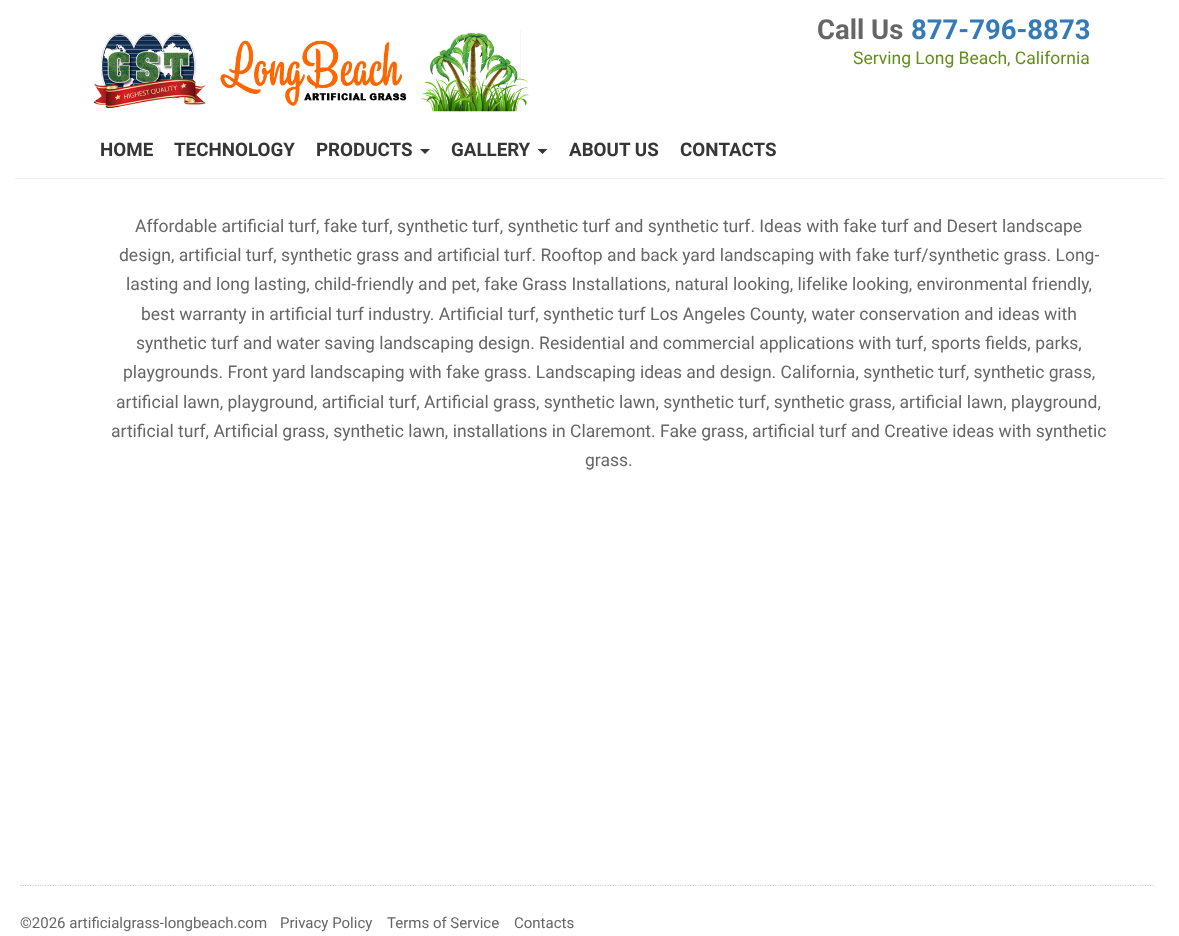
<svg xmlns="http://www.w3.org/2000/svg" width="1179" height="936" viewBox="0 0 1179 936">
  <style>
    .t1 { font: bold 27.5px Roboto; fill: #666; }
    .t2 { font: bold 27.5px Roboto; fill: #337ab7; }
    .t3 { font: 17.5px Roboto; fill: #618f18; }
    .t4 { font: bold 18.75px Heebo; fill: #363636; }
    .t5 { font: 17.5px Roboto; fill: #666; }
    .t6 { font: 15px Roboto; fill: #666; }
  </style>
  <rect width="100%" height="100%" fill="#fff"/>
  <image x="93" y="30" width="436" height="82" href="images/1.png"/>
  <text x="817" y="39" class="t1">Call Us</text>
  <text x="911" y="39" class="t2">877-796-8873</text>
  <text x="853" y="64" class="t3">Serving Long Beach, California</text>
  <text x="100" y="156" class="t4">HOME</text>
  <text x="174" y="156" class="t4">TECHNOLOGY</text>
  <text x="316" y="156" class="t4">PRODUCTS</text>
  <path d="M420 149H430L425 154Z" fill="#363636"/>
  <text x="451" y="156" class="t4">GALLERY</text>
  <path d="M537.5 149H547.5L542.5 154Z" fill="#363636"/>
  <text x="569" y="156" class="t4">ABOUT US</text>
  <text x="680" y="156" class="t4">CONTACTS</text>
  <rect x="15" y="178" width="1150" height="1" fill="#eee"/>
  <text x="135" y="232" class="t5">Affordable artificial turf, fake turf, synthetic turf, synthetic turf and synthetic turf. Ideas with fake turf and Desert landscape</text>
  <text x="119" y="261" class="t5">design, artificial turf, synthetic grass and artificial turf. Rooftop and back yard landscaping with fake turf/synthetic grass. Long-</text>
  <text x="126" y="290" class="t5">lasting and long lasting, child-friendly and pet, fake Grass Installations, natural looking, lifelike looking, environmental friendly,</text>
  <text x="141" y="320" class="t5">best warranty in artificial turf industry. Artificial turf, synthetic turf Los Angeles County, water conservation and ideas with</text>
  <text x="136" y="349" class="t5">synthetic turf and water saving landscaping design. Residential and commercial applications with turf, sports fields, parks,</text>
  <text x="123" y="378" class="t5">playgrounds. Front yard landscaping with fake grass. Landscaping ideas and design. California, synthetic turf, synthetic grass,</text>
  <text x="116" y="408" class="t5">artificial lawn, playground, artificial turf, Artificial grass, synthetic lawn, synthetic turf, synthetic grass, artificial lawn, playground,</text>
  <text x="111" y="437" class="t5">artificial turf, Artificial grass, synthetic lawn, installations in Claremont. Fake grass, artificial turf and Creative ideas with synthetic</text>
  <text x="585" y="466" class="t5">grass.</text>
  <path d="M20 885.5H1155" fill="none" stroke="#cbcbcb" stroke-width="1.2" stroke-dasharray="1.25 1.25"/>
  <text x="20" y="928" class="t6">©2026 artificialgrass-longbeach.com</text>
  <text x="280" y="928" class="t6">Privacy Policy</text>
  <text x="387" y="928" class="t6">Terms of Service</text>
  <text x="514" y="928" class="t6">Contacts</text>
</svg>
